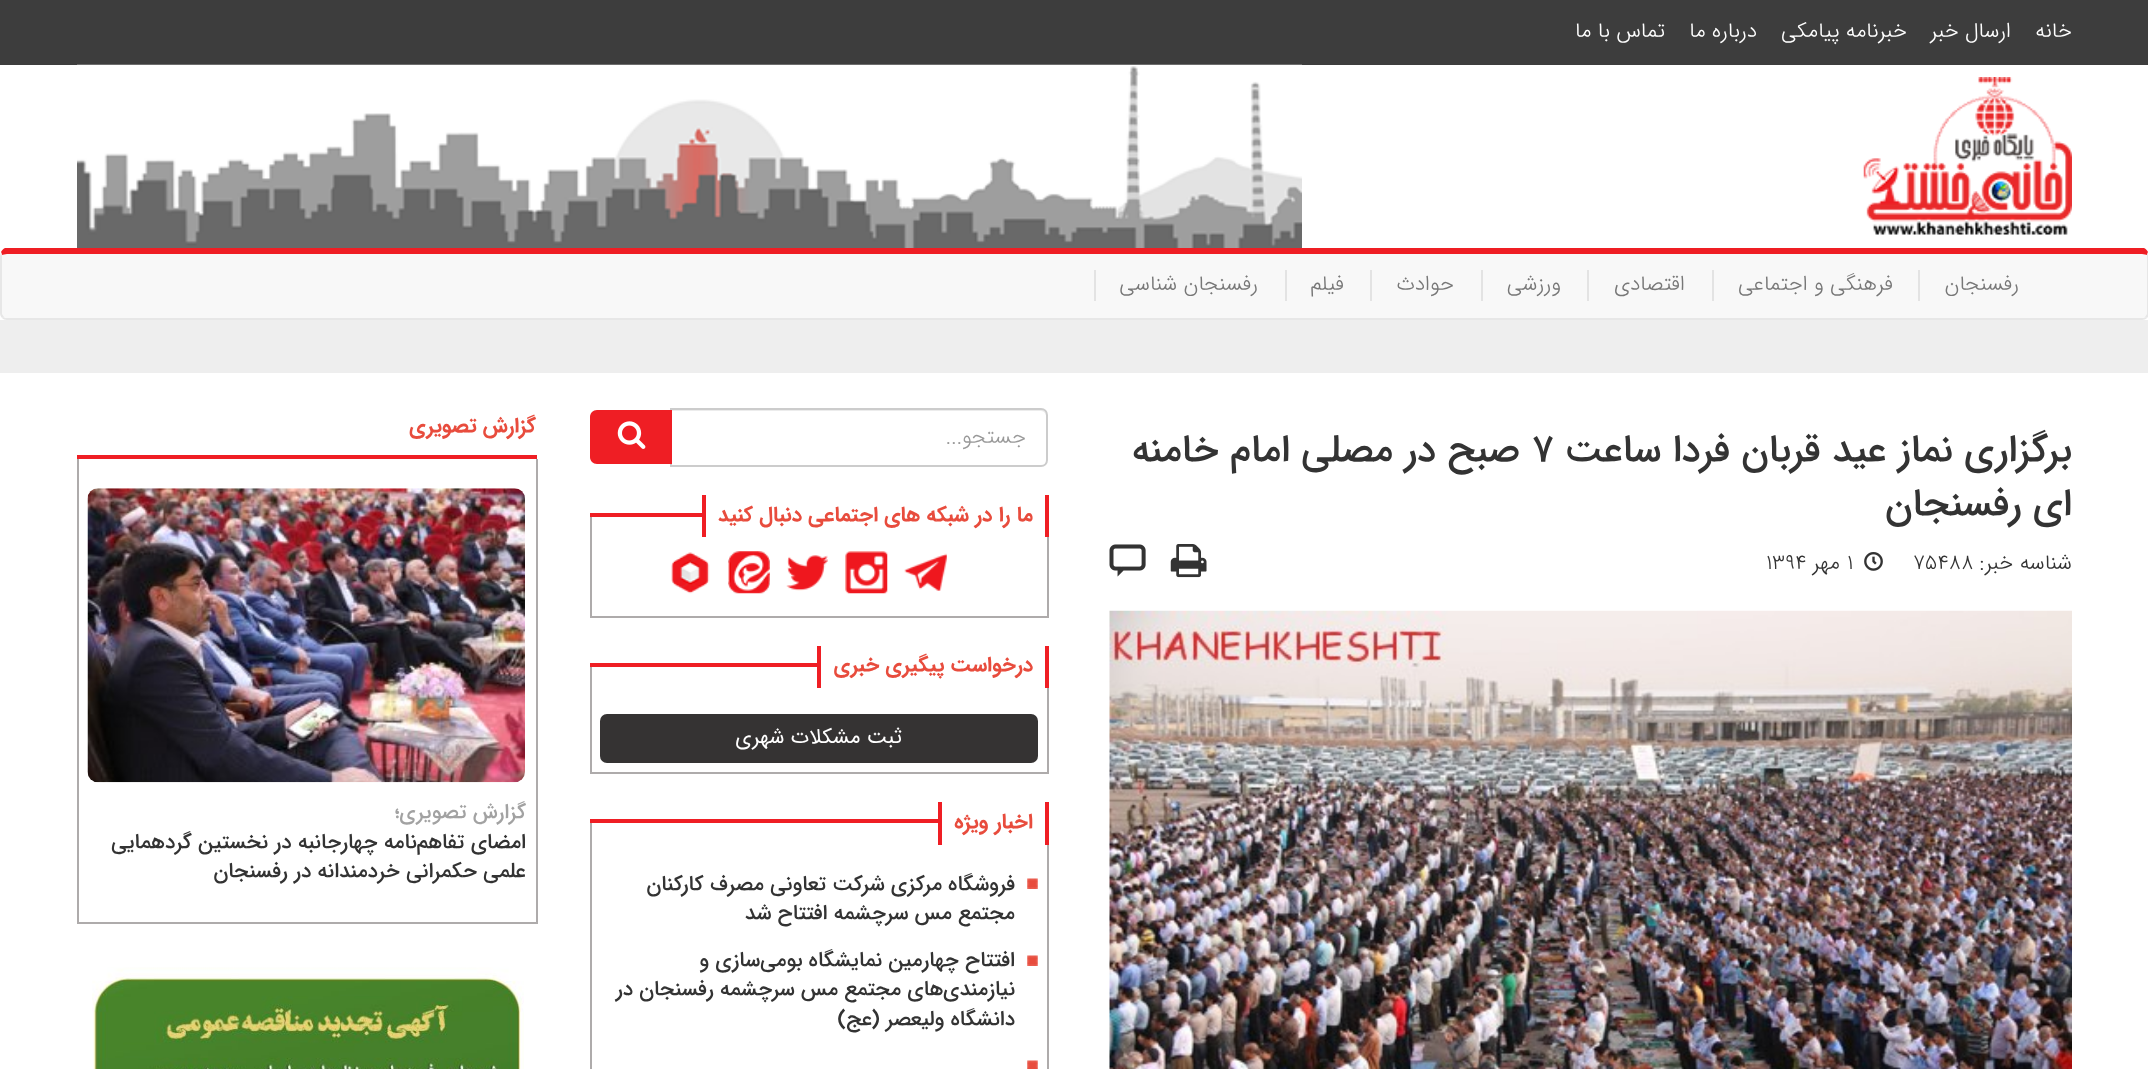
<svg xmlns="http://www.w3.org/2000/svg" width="2148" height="1069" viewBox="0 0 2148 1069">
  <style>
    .t1 { font: 300 21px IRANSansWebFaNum; direction: rtl; fill: #fff; }
    .t2 { font: 300 21px IRANSansWebFaNum; direction: rtl; fill: #777; }
    .t3 { font: 500 38.5px IRANSansWebFaNum; direction: rtl; fill: #333; }
    .t4 { font: 500 38.5px IRANSansWebFaNum; fill: #333; }
    .t5 { font: 300 21px IRANSansWebFaNum; direction: rtl; fill: #333; }
    .t6 { font: 300 21px IRANSansWebFaNum; fill: #333; }
    .t7 { font: 300 21px IRANSansWebFaNum; direction: rtl; fill: #999; }
    .t8 { font: bold 21px IRANSansWebFaNum; direction: rtl; fill: #e84c3d; }
    .t9 { font: 21px IRANSansWebFaNum; direction: rtl; fill: #fff; }
    .t10 { font: 500 21px IRANSansWebFaNum; direction: rtl; fill: #333; }
    .t11 { font: 500 21px IRANSansWebFaNum; direction: rtl; fill: #a2a2a2; }
  </style>
  <rect width="100%" height="100%" fill="#fff"/>
  <rect x="0" y="0" width="2148" height="65" fill="#3d3d3d"/>
  <text x="2072" y="37" class="t1">خانه</text>
  <text x="2011" y="37" class="t1">ارسال خبر</text>
  <text x="1907" y="37" class="t1">خبرنامه پیامکی</text>
  <text x="1757" y="37" class="t1">درباره ما</text>
  <text x="1665" y="37" class="t1">تماس با ما</text>
  <image x="77" y="64" width="1225" height="184" href="images/1.png"/>
  <image x="1863" y="77" width="209" height="158" href="images/2.png"/>
  <path d="M7 254H2142C2145 254 2147 255 2147 256V313C2147 316 2145 318 2142 318H7C4 318 2 316 2 313V256C2 255 4 254 7 254Z" fill="#f8f8f8"/>
  <path d="M7 254C5 254 3 255 2 255L1 252C2 250 3 249 5 248H2144C2146 249 2147 250 2148 252L2147 255C2146 255 2144 254 2142 254Z" fill="#ef1e24"/>
  <path d="M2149 313V256C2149 255 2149 253 2148 252L2147 255V314L2145 317L2147 318C2148 317 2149 315 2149 313Z" fill="#e7e7e7"/>
  <path d="M2147 318C2146 319 2144 320 2142 320H7C5 320 3 319 2 318L4 317C4 318 6 318 7 318H2142C2143 318 2145 318 2145 317Z" fill="#e7e7e7"/>
  <path d="M0 256V313C0 315 1 317 2 318L4 317L2 314V255L1 252Z" fill="#e7e7e7"/>
  <text x="2019" y="290" class="t2">رفسنجان</text>
  <rect x="1918" y="270" width="2" height="31" fill="#e3e3e3"/>
  <text x="1893" y="290" class="t2">فرهنگی و اجتماعی</text>
  <rect x="1712" y="270" width="2" height="31" fill="#e3e3e3"/>
  <text x="1685" y="290" class="t2">اقتصادی</text>
  <rect x="1587" y="270" width="2" height="31" fill="#e3e3e3"/>
  <text x="1561" y="290" class="t2">ورزشی</text>
  <rect x="1481" y="270" width="2" height="31" fill="#e3e3e3"/>
  <text x="1454" y="290" class="t2">حوادث</text>
  <rect x="1370" y="270" width="2" height="31" fill="#e3e3e3"/>
  <text x="1344" y="290" class="t2">فیلم</text>
  <rect x="1285" y="270" width="2" height="31" fill="#e3e3e3"/>
  <text x="1258" y="290" class="t2">رفسنجان شناسی</text>
  <rect x="1094" y="270" width="2" height="31" fill="#e3e3e3"/>
  <rect x="0" y="320" width="2148" height="53" fill="#eee"/>
  <text x="2072" y="461" class="t3">برگزاری نماز عید قربان فردا ساعت</text>
  <text x="1532" y="461" class="t4">۷</text>
  <text x="1520" y="461" class="t3">صبح در مصلی امام خامنه</text>
  <text x="2072" y="515" class="t3">ای رفسنجان</text>
  <text x="2072" y="569" class="t5">شناسه خبر:</text>
  <text x="1913" y="569" class="t6">75488</text>
  <image x="1864" y="552" width="19" height="19" href="images/3.png"/>
  <text x="1847" y="569" class="t6">1</text>
  <text x="1840" y="569" class="t5">مهر</text>
  <text x="1766" y="569" class="t6">1394</text>
  <image x="1170" y="544" width="37" height="34" href="images/4.png"/>
  <image x="1109" y="544" width="37" height="33" href="images/5.png"/>
  <image x="1109" y="610" width="963" height="459" href="images/6.png"/>
  <path d="M672 411H1041C1044 411 1046 414 1046 416V462L1045 465C1046 464 1047 462 1047 461V415C1047 412 1045 410 1042 410H672Z" fill="#ececec"/>
  <path d="M671 409H1041C1044.5 409 1047 411.5 1047 415V460C1047 463.5 1044.5 466 1041 466H671Z" fill="none" stroke="#ccc" stroke-width="2"/>
  <text x="1026" y="443" class="t7">جستجو...</text>
  <path d="M597 410H672V464H597C593 464 590 461 590 457V417C590 413 593 410 597 410Z" fill="#ef1e24"/>
  <image x="617" y="421" width="29" height="28" href="images/7.png"/>
  <rect x="1047" y="537" width="2" height="81" fill="#aeabab"/>
  <rect x="590" y="616" width="458" height="2" fill="#aeabab"/>
  <rect x="590" y="516" width="2" height="102" fill="#aeabab"/>
  <rect x="590" y="513" width="112" height="4" fill="#ef1e24"/>
  <rect x="1045" y="495" width="4" height="42" fill="#ef1e24"/>
  <rect x="702" y="495" width="4" height="42" fill="#ef1e24"/>
  <text x="1033" y="521" class="t8">ما را در شبکه های اجتماعی دنبال کنید</text>
  <image x="904" y="553" width="43" height="38" href="images/8.png"/>
  <image x="845" y="551" width="43" height="43" href="images/9.png"/>
  <image x="786" y="555" width="42" height="36" href="images/10.png"/>
  <image x="728" y="551" width="42" height="43" href="images/11.png"/>
  <image x="671" y="552" width="39" height="42" href="images/12.png"/>
  <rect x="590" y="663" width="227" height="4" fill="#ef1e24"/>
  <rect x="1045" y="646" width="4" height="42" fill="#ef1e24"/>
  <rect x="817" y="646" width="4" height="42" fill="#ef1e24"/>
  <text x="1033" y="671" class="t8">درخواست پیگیری خبری</text>
  <rect x="1047" y="688" width="2" height="86" fill="#aeabab"/>
  <rect x="590" y="772" width="458" height="2" fill="#aeabab"/>
  <rect x="590" y="667" width="2" height="107" fill="#aeabab"/>
  <rect x="600" y="714" width="438" height="49" rx="7" fill="#353333"/>
  <text x="902" y="743" class="t9">ثبت مشکلات شهری</text>
  <rect x="590" y="819" width="348" height="4" fill="#ef1e24"/>
  <rect x="1045" y="802" width="4" height="43" fill="#ef1e24"/>
  <rect x="938" y="802" width="4" height="43" fill="#ef1e24"/>
  <text x="1033" y="828" class="t8">اخبار ویژه</text>
  <rect x="1047" y="845" width="2" height="224" fill="#aeabab"/>
  <rect x="590" y="823" width="2" height="246" fill="#aeabab"/>
  <image x="1027" y="878" width="11" height="11" href="images/13.png"/>
  <text x="1015" y="890" class="t10">فروشگاه مرکزی شرکت تعاونی مصرف کارکنان</text>
  <text x="1015" y="919" class="t10">مجتمع مس سرچشمه افتتاح شد</text>
  <image x="1027" y="955" width="11" height="11" href="images/13.png"/>
  <text x="1015" y="966" class="t10">افتتاح چهارمین نمایشگاه بومی‌سازی و</text>
  <text x="1015" y="995" class="t10">نیازمندی‌های مجتمع مس سرچشمه رفسنجان در</text>
  <text x="1015" y="1025" class="t10">دانشگاه ولیعصر (عج)</text>
  <image x="1027" y="1060" width="11" height="9" href="images/14.png"/>
  <rect x="77" y="455" width="460" height="4" fill="#ef1e24"/>
  <text x="536" y="432" class="t8">گزارش تصویری</text>
  <rect x="536" y="459" width="2" height="465" fill="#aeabab"/>
  <rect x="77" y="922" width="460" height="2" fill="#aeabab"/>
  <rect x="77" y="459" width="2" height="465" fill="#aeabab"/>
  <image x="87" y="488" width="438" height="295" href="images/15.png"/>
  <text x="526" y="818" class="t11">گزارش تصویری؛</text>
  <text x="526" y="848" class="t10">امضای تفاهم‌نامه چهارجانبه در نخستین گردهمایی</text>
  <text x="526" y="877" class="t10">علمی حکمرانی خردمندانه در رفسنجان</text>
  <image x="92" y="967" width="432" height="102" href="images/16.png"/>
</svg>
